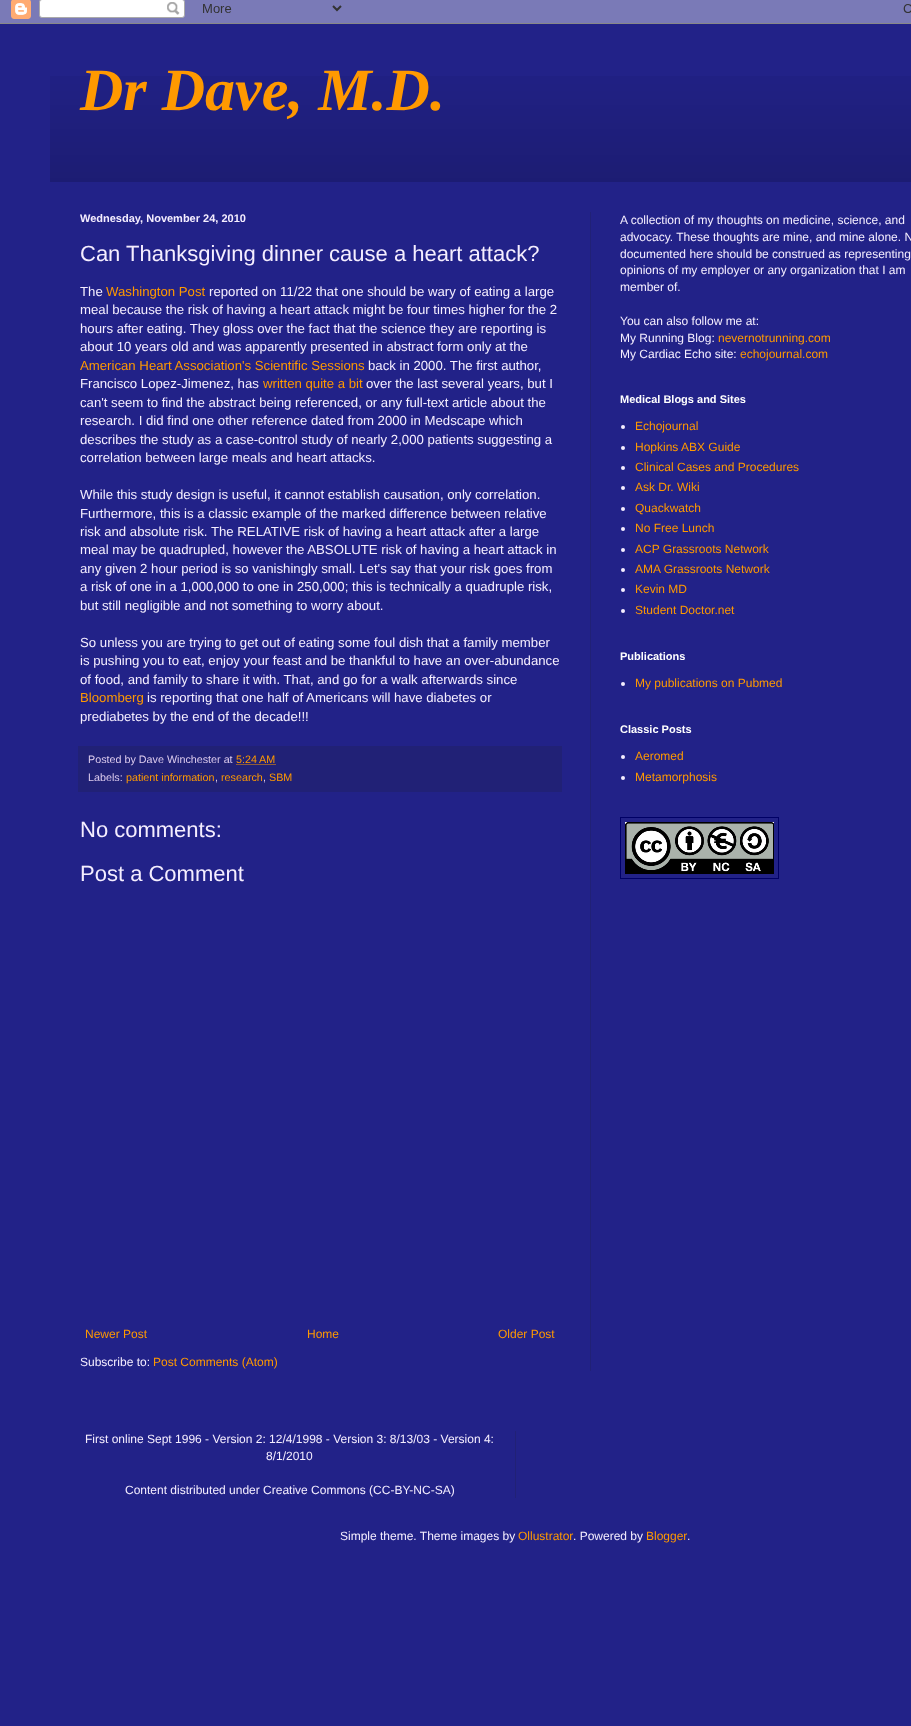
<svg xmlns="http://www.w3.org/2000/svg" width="911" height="1726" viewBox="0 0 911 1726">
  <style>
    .t1 { font: italic bold 60px Liberation Serif; fill: #f90; }
    .t2 { font: bold 11px Liberation Sans; fill: #f5eeff; }
    .t3 { font: 22px Liberation Sans; fill: #f5eeff; }
    .t4 { font: 13.2px Liberation Sans; fill: #f5eeff; }
    .t5 { font: 13.2px Liberation Sans; fill: #f90; }
    .t6 { font: 10.75px Liberation Sans; fill: #dce; }
    .t7 { font: 10.75px Liberation Sans; fill: #f90; }
    .t8 { font: 12px Liberation Sans; fill: #f90; }
    .t9 { font: 12px Liberation Sans; fill: #f5eeff; }
    .t10 { font: bold 11px Liberation Sans; fill: #fff; }
  </style>
  <rect width="100%" height="100%" fill="#228"/>
  <image x="0" y="0" width="911" height="24" href="images/1.png"/>
  <image x="50" y="76" width="861" height="106" href="images/2.png"/>
  <text x="80" y="110" class="t1">Dr Dave, M.D.</text>
  <rect x="590" y="212" width="1" height="1159" fill="#212176"/>
  <text x="80" y="222" class="t2">Wednesday, November 24, 2010</text>
  <text x="80" y="261" class="t3">Can Thanksgiving dinner cause a heart attack?</text>
  <text x="80" y="296" class="t4">The</text>
  <text x="106" y="296" class="t5">Washington Post</text>
  <text x="209" y="296" class="t4">reported on 11/22 that one should be wary of eating a large</text>
  <text x="80" y="314" class="t4">meal because the risk of having a heart attack might be four times higher for the 2</text>
  <text x="80" y="333" class="t4">hours after eating. They gloss over the fact that the science they are reporting is</text>
  <text x="80" y="351" class="t4">about 10 years old and was apparently presented in abstract form only at the</text>
  <text x="80" y="370" class="t5">American Heart Association's Scientific Sessions</text>
  <text x="368" y="370" class="t4">back in 2000. The first author,</text>
  <text x="80" y="388" class="t4">Francisco Lopez-Jimenez, has</text>
  <text x="263" y="388" class="t5">written quite a bit</text>
  <text x="366" y="388" class="t4">over the last several years, but I</text>
  <text x="80" y="407" class="t4">can't seem to find the abstract being referenced, or any full-text article about the</text>
  <text x="80" y="425" class="t4">research. I did find one other reference dated from 2000 in Medscape which</text>
  <text x="80" y="444" class="t4">describes the study as a case-control study of nearly 2,000 patients suggesting a</text>
  <text x="80" y="462" class="t4">correlation between large meals and heart attacks.</text>
  <text x="80" y="499" class="t4">While this study design is useful, it cannot establish causation, only correlation.</text>
  <text x="80" y="518" class="t4">Furthermore, this is a classic example of the marked difference between relative</text>
  <text x="80" y="536" class="t4">risk and absolute risk. The RELATIVE risk of having a heart attack after a large</text>
  <text x="80" y="554" class="t4">meal may be quadrupled, however the ABSOLUTE risk of having a heart attack in</text>
  <text x="80" y="573" class="t4">any given 2 hour period is so vanishingly small. Let's say that your risk goes from</text>
  <text x="80" y="591" class="t4">a risk of one in a 1,000,000 to one in 250,000; this is technically a quadruple risk,</text>
  <text x="80" y="610" class="t4">but still negligible and not something to worry about.</text>
  <text x="80" y="647" class="t4">So unless you are trying to get out of eating some foul dish that a family member</text>
  <text x="80" y="665" class="t4">is pushing you to eat, enjoy your feast and be thankful to have an over-abundance</text>
  <text x="80" y="684" class="t4">of food, and family to share it with. That, and go for a walk afterwards since</text>
  <text x="80" y="702" class="t5">Bloomberg</text>
  <text x="147" y="702" class="t4">is reporting that one half of Americans will have diabetes or</text>
  <text x="80" y="721" class="t4">prediabetes by the end of the decade!!!</text>
  <rect x="78" y="746" width="484" height="46" fill="#212176"/>
  <text x="88" y="763" class="t6">Posted by Dave Winchester at</text>
  <text x="236" y="763" class="t7">5:24 AM</text>
  <path d="M236.5 764.5H275.5" fill="none" stroke="#f90" stroke-dasharray="1 1"/>
  <text x="88" y="781" class="t6">Labels:</text>
  <text x="126" y="781" class="t7">patient information</text>
  <text x="215" y="781" class="t6">,</text>
  <text x="221" y="781" class="t7">research</text>
  <text x="263" y="781" class="t6">,</text>
  <text x="269" y="781" class="t7">SBM</text>
  <text x="80" y="837" class="t3">No comments:</text>
  <text x="80" y="881" class="t3">Post a Comment</text>
  <text x="85" y="1338" class="t8">Newer Post</text>
  <text x="307" y="1338" class="t8">Home</text>
  <text x="498" y="1338" class="t8">Older Post</text>
  <text x="80" y="1366" class="t9">Subscribe to:</text>
  <text x="153" y="1366" class="t8">Post Comments (Atom)</text>
  <text x="620" y="224" class="t9">A collection of my thoughts on medicine, science, and</text>
  <text x="620" y="241" class="t9">advocacy. These thoughts are mine, and mine alone. N</text>
  <text x="620" y="258" class="t9">documented here should be construed as representing</text>
  <text x="620" y="274" class="t9">opinions of my employer or any organization that I am</text>
  <text x="620" y="291" class="t9">member of.</text>
  <text x="620" y="325" class="t9">You can also follow me at:</text>
  <text x="620" y="342" class="t9">My Running Blog:</text>
  <text x="718" y="342" class="t8">nevernotrunning.com</text>
  <text x="620" y="358" class="t9">My Cardiac Echo site:</text>
  <text x="740" y="358" class="t8">echojournal.com</text>
  <text x="620" y="403" class="t10">Medical Blogs and Sites</text>
  <circle cx="623" cy="427" r="2" fill="#f5eeff"/>
  <text x="635" y="430" class="t8">Echojournal</text>
  <circle cx="623" cy="448" r="2" fill="#f5eeff"/>
  <text x="635" y="451" class="t8">Hopkins ABX Guide</text>
  <circle cx="623" cy="468" r="2" fill="#f5eeff"/>
  <text x="635" y="471" class="t8">Clinical Cases and Procedures</text>
  <circle cx="623" cy="488" r="2" fill="#f5eeff"/>
  <text x="635" y="491" class="t8">Ask Dr. Wiki</text>
  <circle cx="623" cy="509" r="2" fill="#f5eeff"/>
  <text x="635" y="512" class="t8">Quackwatch</text>
  <circle cx="623" cy="529" r="2" fill="#f5eeff"/>
  <text x="635" y="532" class="t8">No Free Lunch</text>
  <circle cx="623" cy="550" r="2" fill="#f5eeff"/>
  <text x="635" y="553" class="t8">ACP Grassroots Network</text>
  <circle cx="623" cy="570" r="2" fill="#f5eeff"/>
  <text x="635" y="573" class="t8">AMA Grassroots Network</text>
  <circle cx="623" cy="590" r="2" fill="#f5eeff"/>
  <text x="635" y="593" class="t8">Kevin MD</text>
  <circle cx="623" cy="611" r="2" fill="#f5eeff"/>
  <text x="635" y="614" class="t8">Student Doctor.net</text>
  <text x="620" y="660" class="t10">Publications</text>
  <circle cx="623" cy="684" r="2" fill="#f5eeff"/>
  <text x="635" y="687" class="t8">My publications on Pubmed</text>
  <text x="620" y="733" class="t10">Classic Posts</text>
  <circle cx="623" cy="757" r="2" fill="#f5eeff"/>
  <text x="635" y="760" class="t8">Aeromed</text>
  <circle cx="623" cy="778" r="2" fill="#f5eeff"/>
  <text x="635" y="781" class="t8">Metamorphosis</text>
  <rect x="620.5" y="817.5" width="158" height="61" fill="none" stroke="#006"/>
  <image x="625" y="822" width="149" height="52" href="images/3.png"/>
  <text x="85" y="1443" class="t9">First online Sept 1996 - Version 2: 12/4/1998 - Version 3: 8/13/03 - Version 4:</text>
  <text x="266" y="1460" class="t9">8/1/2010</text>
  <text x="125" y="1494" class="t9">Content distributed under Creative Commons (CC-BY-NC-SA)</text>
  <rect x="515" y="1431" width="1" height="67" fill="#212176"/>
  <text x="340" y="1540" class="t9">Simple theme. Theme images by</text>
  <text x="518" y="1540" class="t8">Ollustrator</text>
  <text x="573" y="1540" class="t9">. Powered by</text>
  <text x="646" y="1540" class="t8">Blogger</text>
  <text x="687" y="1540" class="t9">.</text>
</svg>
